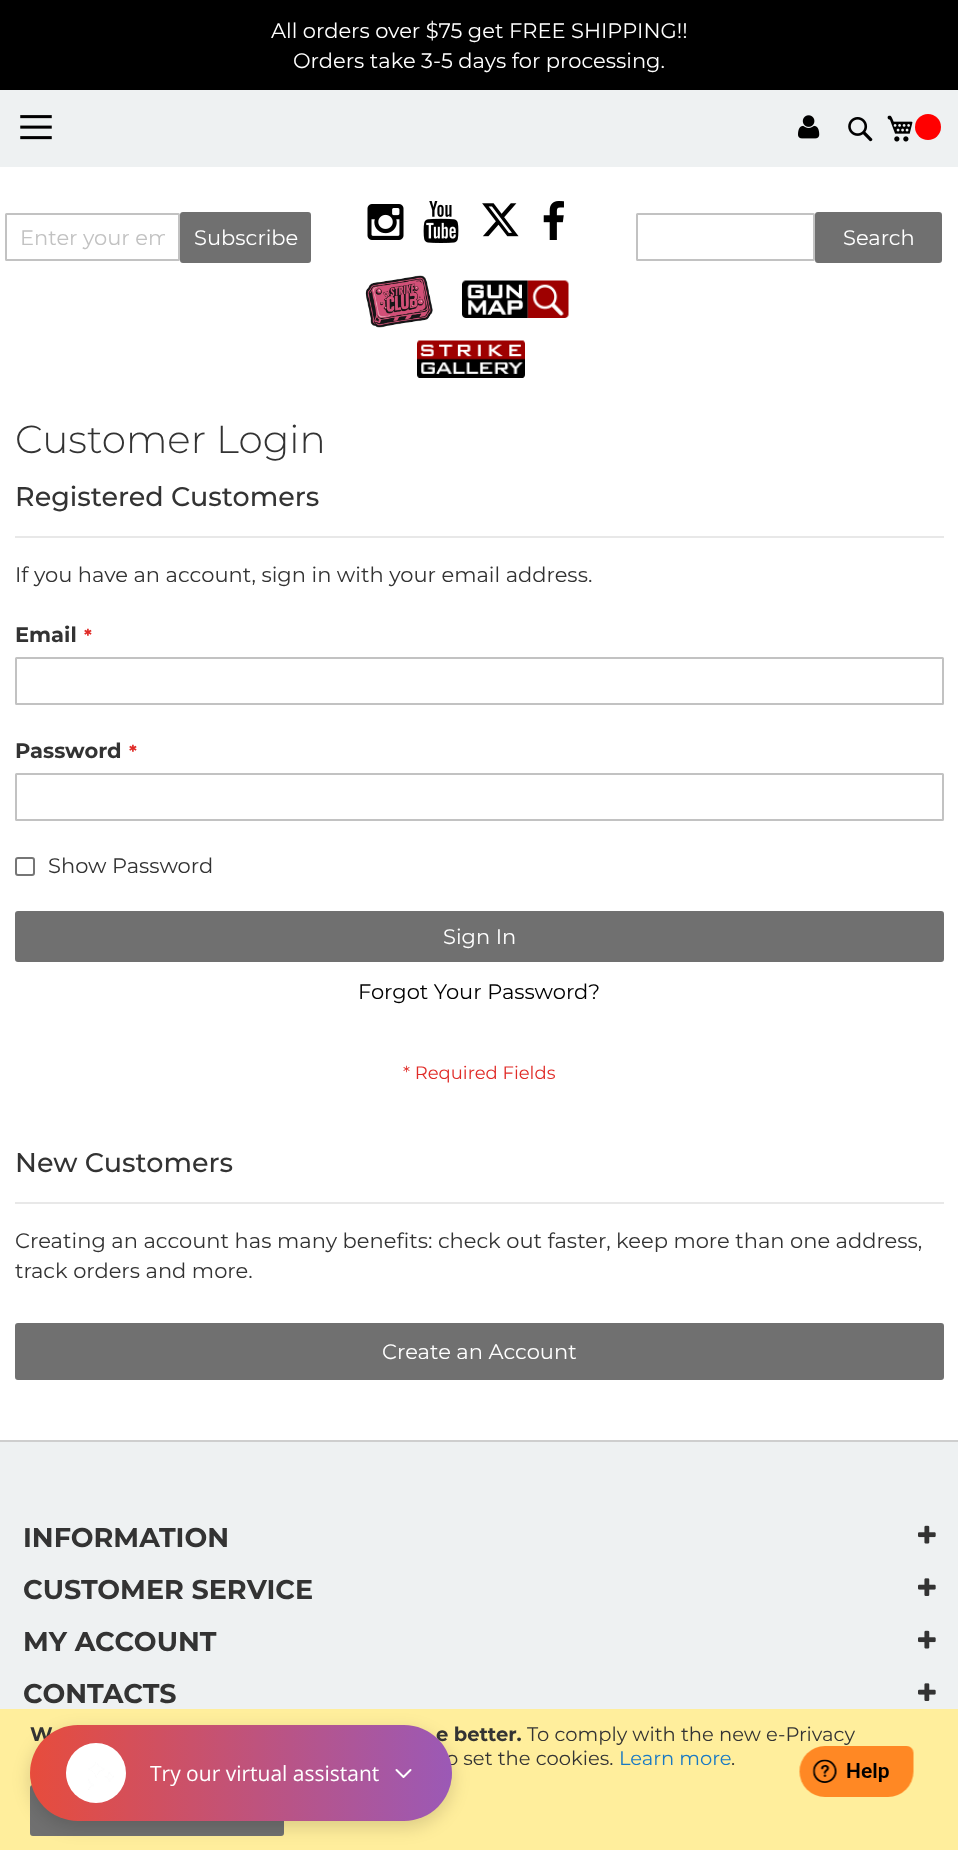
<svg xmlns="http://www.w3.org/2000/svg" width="958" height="1850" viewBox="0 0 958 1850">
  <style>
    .t1 { font: 21px Montserrat; fill: #fff; }
    .t2 { font: 21px Montserrat; fill: #c2c2c2; }
    .t3 { font: 300 39px Montserrat; fill: #333; }
    .t4 { font: 500 27px Montserrat; fill: #333; }
    .t5 { font: 21px Montserrat; fill: #333; }
    .t6 { font: bold 21px Montserrat; fill: #333; }
    .t7 { font: bold 18px Montserrat; fill: #e02b27; }
    .t8 { font: 21px Montserrat; fill: #000; }
    .t9 { font: 18px Montserrat; fill: #e02b27; }
    .t10 { font: bold 27px Montserrat; fill: #333; }
    .t11 { font: bold 19.5px Montserrat; fill: #333; }
    .t12 { font: 19.5px Montserrat; fill: #333; }
    .t13 { font: 21px Open Sans; fill: #fff; }
    .t14 { font: 19.5px Montserrat; fill: #1979c3; }
  </style>
  <defs>
    <clipPath id="clip1"><rect x="20" y="224" width="145" height="27"/></clipPath>
    <linearGradient id="g1" gradientUnits="userSpaceOnUse" x1="30" y1="1773" x2="452" y2="1773"><stop offset="0" stop-color="#e74c3c"/><stop offset="1" stop-color="#9b59b6"/></linearGradient>
  </defs>
  <rect width="100%" height="100%" fill="#fff"/>
  <rect x="0" y="0" width="958" height="90" fill="#000"/>
  <text x="271" y="38" class="t1">All orders over $75 get FREE SHIPPING!!</text>
  <text x="293" y="68" class="t1">Orders take 3-5 days for processing.</text>
  <rect x="0" y="90" width="958" height="77" fill="#eef1f2"/>
  <image x="20" y="115" width="32" height="25" href="images/1.png"/>
  <image x="798" y="115" width="22" height="24" href="images/2.png"/>
  <image x="848" y="117" width="25" height="25" href="images/3.png"/>
  <image x="887" y="115" width="26" height="27" href="images/4.png"/>
  <circle cx="928" cy="127" r="13" fill="#f00"/>
  <rect x="6" y="214" width="173" height="46" rx="0.5" fill="none" stroke="#c2c2c2" stroke-width="2"/>
  <g clip-path="url(#clip1)">
    <text x="20" y="245" class="t2">Enter your em</text>
  </g>
  <rect x="181" y="213" width="129" height="49" rx="2" fill="#707070" stroke="#707070" stroke-width="2"/>
  <text x="194" y="245" class="t1">Subscribe</text>
  <image x="367" y="204" width="37" height="36" href="images/5.png"/>
  <image x="423" y="201" width="36" height="42" href="images/6.png"/>
  <image x="482" y="203" width="37" height="34" href="images/7.png"/>
  <image x="543" y="201" width="21" height="39" href="images/8.png"/>
  <image x="365" y="275" width="68" height="53" href="images/9.png"/>
  <image x="462" y="280" width="107" height="38" href="images/10.png"/>
  <image x="417" y="340" width="108" height="38" href="images/11.png"/>
  <rect x="637" y="214" width="177" height="46" rx="0.5" fill="none" stroke="#c2c2c2" stroke-width="2"/>
  <rect x="816" y="213" width="125" height="49" rx="2" fill="#707070" stroke="#707070" stroke-width="2"/>
  <text x="843" y="245" class="t1">Search</text>
  <text x="15" y="453" class="t3">Customer Login</text>
  <rect x="15" y="536" width="929" height="2" fill="#e8e8e8"/>
  <text x="15" y="506" class="t4">Registered Customers</text>
  <text x="15" y="582" class="t5">If you have an account, sign in with your email address.</text>
  <text x="15" y="642" class="t6">Email</text>
  <text x="84" y="642" class="t7">*</text>
  <rect x="16" y="658" width="927" height="46" rx="0.5" fill="none" stroke="#c2c2c2" stroke-width="2"/>
  <text x="15" y="758" class="t6">Password</text>
  <text x="129" y="758" class="t7">*</text>
  <rect x="16" y="774" width="927" height="46" rx="0.5" fill="none" stroke="#c2c2c2" stroke-width="2"/>
  <rect x="16" y="858" width="18" height="17" rx="2" fill="none" stroke="#767676" stroke-width="2"/>
  <text x="48" y="873" class="t5">Show Password</text>
  <rect x="16" y="912" width="927" height="49" rx="2" fill="#707070" stroke="#707070" stroke-width="2"/>
  <text x="443" y="944" class="t1">Sign In</text>
  <text x="358" y="999" class="t8">Forgot Your Password?</text>
  <text x="403" y="1079" class="t9">* Required Fields</text>
  <rect x="15" y="1202" width="929" height="2" fill="#e8e8e8"/>
  <text x="15" y="1172" class="t4">New Customers</text>
  <text x="15" y="1248" class="t5">Creating an account has many benefits: check out faster, keep more than one address,</text>
  <text x="15" y="1278" class="t5">track orders and more.</text>
  <rect x="16" y="1324" width="927" height="55" rx="2" fill="#707070" stroke="#707070" stroke-width="2"/>
  <text x="382" y="1359" class="t1">Create an Account</text>
  <rect x="0" y="1442" width="958" height="267" fill="#eef1f2"/>
  <rect x="0" y="1440" width="958" height="2" fill="#cecece"/>
  <text x="23" y="1547" class="t10">INFORMATION</text>
  <image x="918" y="1525" width="18" height="19" href="images/12.png"/>
  <text x="23" y="1599" class="t10">CUSTOMER SERVICE</text>
  <image x="918" y="1578" width="18" height="18" href="images/13.png"/>
  <text x="23" y="1651" class="t10">MY ACCOUNT</text>
  <image x="918" y="1630" width="18" height="19" href="images/12.png"/>
  <text x="23" y="1703" class="t10">CONTACTS</text>
  <image x="918" y="1683" width="18" height="18" href="images/13.png"/>
  <rect x="0" y="1709" width="958" height="141" fill="#ffee9c"/>
  <rect x="31" y="1786" width="252" height="49" rx="2" fill="#707070" stroke="#707070" stroke-width="2"/>
  <rect x="30" y="1731" width="422" height="96" rx="48" fill="#00000026" filter="blur(9px)"/>
  <text x="30" y="1741" class="t11">W</text>
  <text x="436" y="1741" class="t11">e better.</text>
  <text x="446" y="1765" class="t12">o set the cookies.</text>
  <rect x="30" y="1725" width="422" height="96" rx="48" fill="url(#g1)"/>
  <circle cx="96" cy="1773" r="30" fill="#fff"/>
  <image x="88" y="1762" width="26" height="28" href="images/14.png"/>
  <text x="150" y="1781" class="t13">Try our virtual assistant</text>
  <path d="M410.5 1770L403.5 1777L396.5 1770" fill="none" stroke="#fff" stroke-width="2" stroke-linecap="round" stroke-linejoin="round"/>
  <text x="527" y="1741" class="t12">To comply with the new e-Privacy</text>
  <text x="619" y="1765" class="t14">Learn more</text>
  <text x="731" y="1765" class="t12">.</text>
  <image x="799" y="1746" width="115" height="51" href="images/15.png"/>
</svg>
